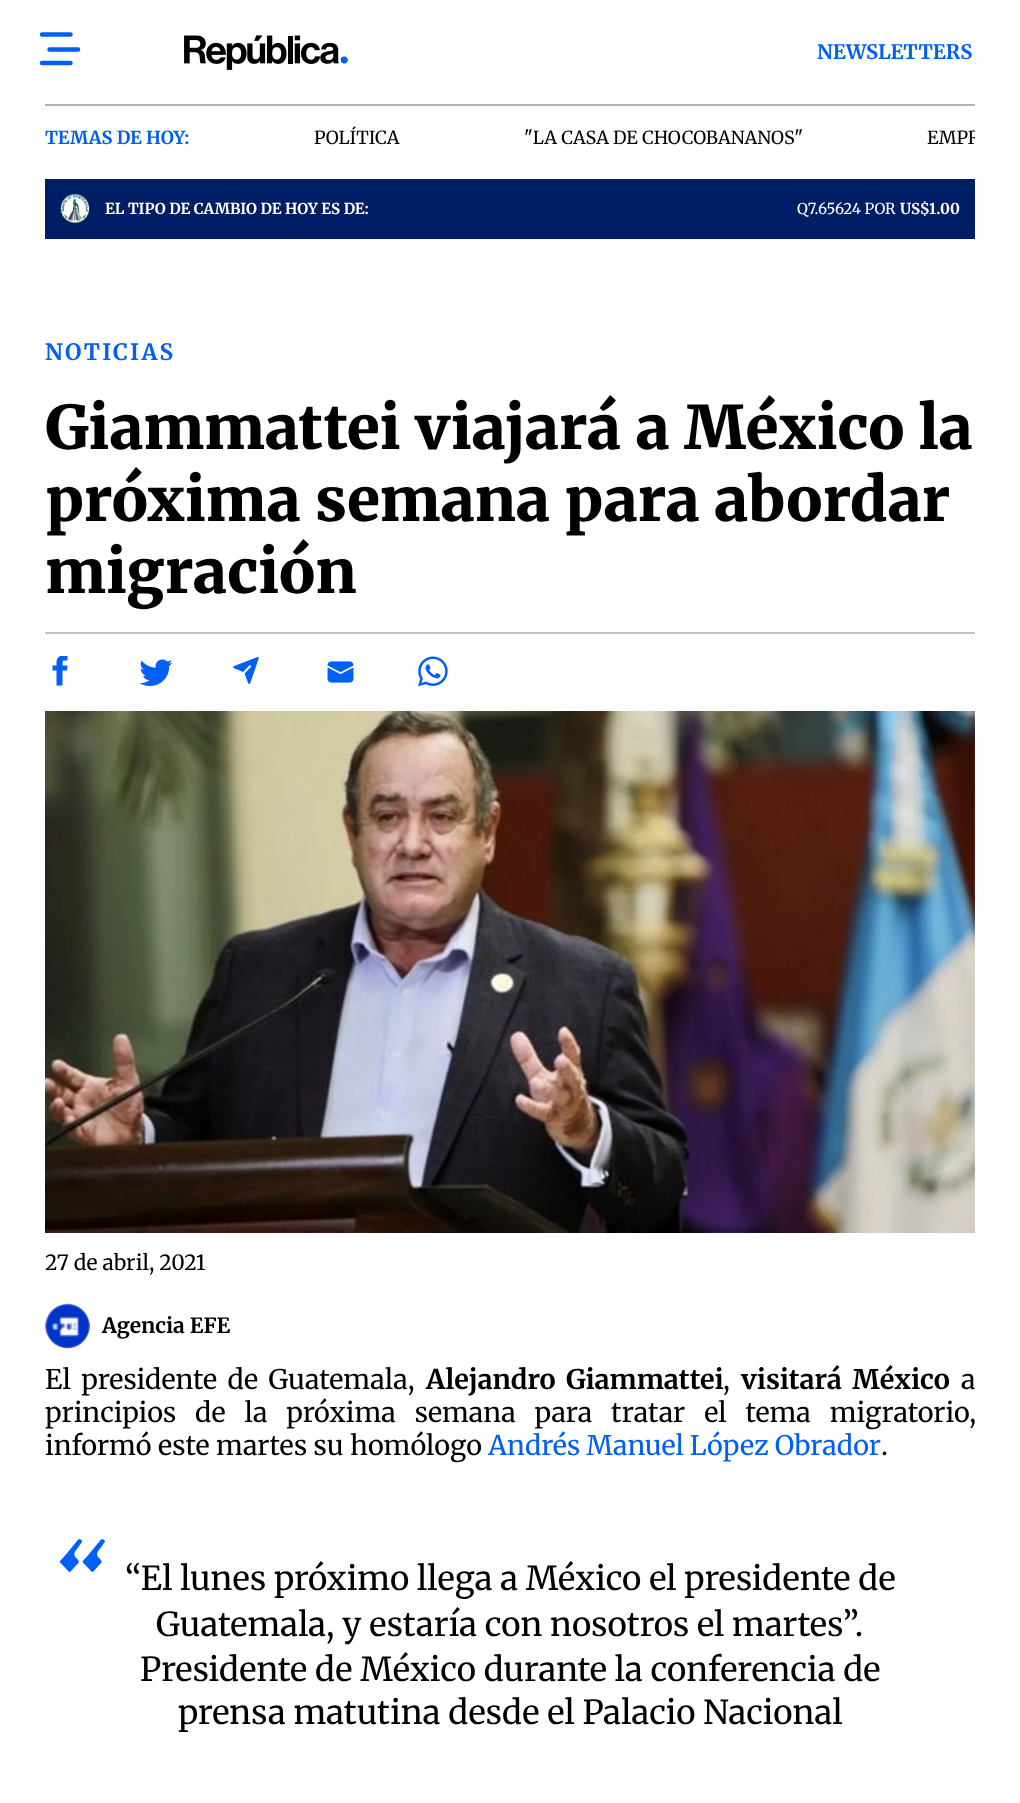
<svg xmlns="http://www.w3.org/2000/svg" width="1020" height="1803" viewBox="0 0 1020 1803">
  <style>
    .t1 { font: bold 20px Merriweather; fill: #005ff5; }
    .t2 { font: bold 18px Merriweather; fill: #005ff5; }
    .t3 { font: 18px Merriweather; fill: #000; }
    .t4 { font: bold 15px Merriweather; fill: #fff; }
    .t5 { font: 15px Merriweather; fill: #fff; }
    .t6 { font: bold 22.5px Merriweather; letter-spacing: 2.25px; fill: #005ff5; }
    .t7 { font: 900 60px Merriweather; fill: #000; }
    .t8 { font: 21px Merriweather; fill: #000; }
    .t9 { font: bold 21px Merriweather; fill: #000; }
    .t10 { font: 27px Merriweather; fill: #000; }
    .t11 { font: bold 27px Merriweather; fill: #000; }
    .t12 { font: 27px Merriweather; fill: #005ff5; }
    .t13 { font: 33px Merriweather; fill: #000; }
  </style>
  <defs>
    <clipPath id="clip1"><rect x="45" y="125" width="930" height="24"/></clipPath>
  </defs>
  <rect width="100%" height="100%" fill="#fff"/>
  <path d="M42 34.5H70.5M42 63H70.5M49.5 49.5H78" fill="none" stroke="#005ff5" stroke-width="4.5" stroke-linecap="round" stroke-linejoin="round"/>
  <image x="184" y="35" width="164" height="35" href="images/1.png"/>
  <text x="817" y="59" class="t1">NEWSLETTERS</text>
  <rect x="45" y="104" width="930" height="2" fill="#b1b1b1"/>
  <text x="45" y="144" class="t2">TEMAS DE HOY:</text>
  <text x="314" y="144" class="t3">POLÍTICA</text>
  <text x="524" y="144" class="t3">"LA CASA DE CHOCOBANANOS"</text>
  <g clip-path="url(#clip1)">
    <text x="927" y="144" class="t3">EMPR</text>
  </g>
  <rect x="45" y="179" width="930" height="60" fill="#001e65"/>
  <image x="60" y="193" width="30" height="31" href="images/2.png"/>
  <text x="105" y="214" class="t4">EL TIPO DE CAMBIO DE HOY ES DE:</text>
  <text x="797" y="214" class="t5">Q7.65624 POR</text>
  <text x="900" y="214" class="t4">US$1.00</text>
  <text x="45" y="360" class="t6">NOTICIAS</text>
  <text x="45" y="449" class="t7">Giammattei viajará a México la</text>
  <text x="45" y="521" class="t7">próxima semana para abordar</text>
  <text x="45" y="593" class="t7">migración</text>
  <rect x="45" y="632" width="930" height="2" fill="#c4c2c2"/>
  <image x="52" y="656" width="16" height="30" href="images/3.png"/>
  <image x="139" y="659" width="34" height="27" href="images/4.png"/>
  <image x="233" y="657" width="26" height="27" href="images/5.png"/>
  <image x="327" y="661" width="27" height="22" href="images/6.png"/>
  <image x="418" y="656" width="30" height="31" href="images/7.png"/>
  <image x="45" y="711" width="930" height="522" href="images/8.png"/>
  <text x="45" y="1270" class="t8">27 de abril, 2021</text>
  <image x="45" y="1303" width="45" height="46" href="images/9.png"/>
  <text x="102" y="1333" class="t9">Agencia EFE</text>
  <text x="45" y="1389" word-spacing="4" class="t10">El presidente de Guatemala,</text>
  <text x="426" y="1389" word-spacing="4" class="t11">Alejandro Giammattei</text>
  <text x="723" y="1389" class="t10">,</text>
  <text x="741" y="1389" word-spacing="4" class="t11">visitará México</text>
  <text x="961" y="1389" class="t10">a</text>
  <text x="45" y="1422" word-spacing="12.5" class="t10">principios de la próxima semana para tratar el tema migratorio,</text>
  <text x="45" y="1455" class="t10">informó este martes su homólogo</text>
  <text x="488" y="1455" word-spacing="-0.5" class="t12">Andrés Manuel López Obrador</text>
  <text x="881" y="1455" class="t10">.</text>
  <image x="60" y="1539" width="45" height="33" href="images/10.png"/>
  <text x="125" y="1590" class="t13">“El lunes próximo llega a México el presidente de</text>
  <text x="156" y="1636" class="t13">Guatemala, y estaría con nosotros el martes”.</text>
  <text x="140" y="1681" class="t13">Presidente de México durante la conferencia de</text>
  <text x="178" y="1724" class="t13">prensa matutina desde el Palacio Nacional</text>
</svg>
